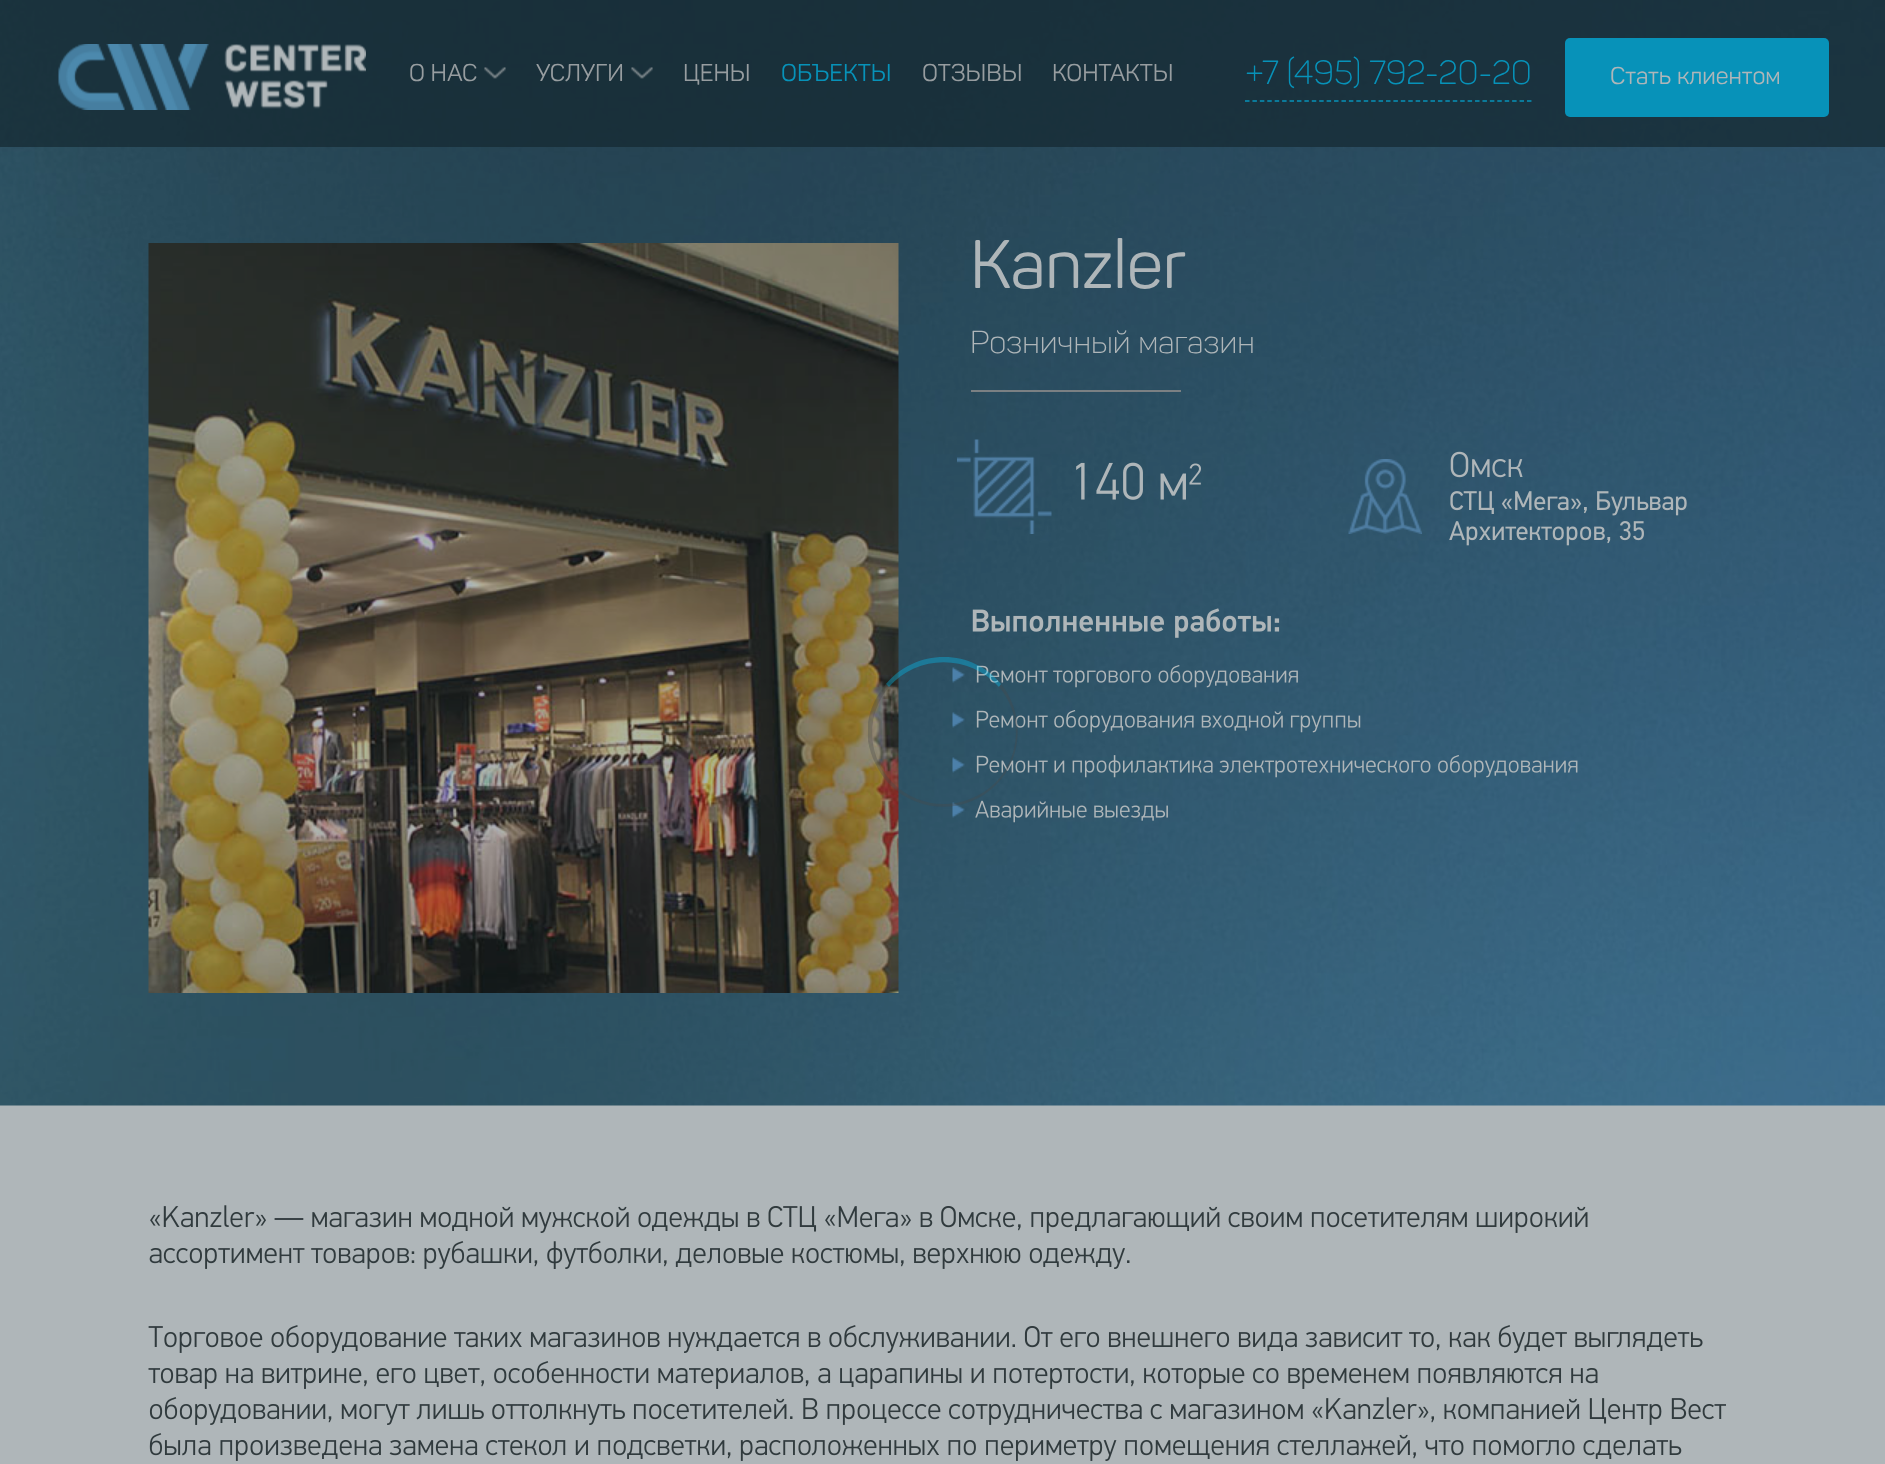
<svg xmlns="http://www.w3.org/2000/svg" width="1885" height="1464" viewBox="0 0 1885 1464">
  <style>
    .t1 { font: 24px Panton; fill: #979da0; }
    .t2 { font: 24px Panton; fill: #0792b9; }
    .t3 { font: 300 33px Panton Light; fill: #0792b9; }
    .t4 { font: 24px Panton; fill: #afb6b9; }
    .t5 { font: 67.5px Panton; fill: #afb6b9; }
    .t6 { font: 300 31.5px Panton Light; fill: #afb6b9; }
  </style>
  <rect width="100%" height="100%" fill="#afb6b9"/>
  <image x="0" y="0" width="1885" height="1106" href="images/4.png"/>
  <rect x="0" y="0" width="1885" height="147" fill="#142830b3"/>
  <image x="58" y="44" width="308" height="66" href="images/1.png"/>
  <text x="409" y="81" class="t1">О НАС</text>
  <image x="484" y="67" width="22" height="12" href="images/2.png"/>
  <text x="536" y="81" class="t1">УСЛУГИ</text>
  <image x="631" y="67" width="22" height="12" href="images/3.png"/>
  <text x="683" y="81" class="t1">ЦЕНЫ</text>
  <text x="781" y="81" class="t2">ОБЪЕКТЫ</text>
  <text x="922" y="81" class="t1">ОТЗЫВЫ</text>
  <text x="1052" y="81" class="t1">КОНТАКТЫ</text>
  <path d="M1245 101H1531.5" fill="none" stroke="#0792b9" stroke-width="1.5" stroke-dasharray="4.5 2.92"/>
  <text x="1245" y="84" class="t3">+7 (495) 792-20-20</text>
  <rect x="1565" y="38" width="264" height="79" rx="5" fill="#0792b9"/>
  <text x="1610" y="84" class="t4">Стать клиентом</text>
  <image x="148" y="243" width="751" height="750" href="images/5.png"/>
  <text x="970" y="288" class="t5">Kanzler</text>
  <text x="970" y="353" class="t6">Розничный магазин</text>
  <rect x="971" y="390" width="210" height="2" fill="#7b8083"/>
  <image x="957" y="439" width="95" height="95" href="images/6.png"/>
  <image x="1076" y="462" width="110" height="38" href="images/7.png"/>
  <image x="1189" y="463" width="12" height="22" href="images/8.png"/>
  <image x="1348" y="459" width="74" height="75" href="images/9.png"/>
  <image x="1450" y="451" width="73" height="27" href="images/10.png"/>
  <image x="1450" y="491" width="237" height="25" href="images/11.png"/>
  <image x="1449" y="521" width="195" height="25" href="images/12.png"/>
  <image x="972" y="608" width="308" height="30" href="images/13.png"/>
  <image x="952" y="667" width="13" height="16" href="images/14.png"/>
  <image x="976" y="665" width="322" height="23" href="images/15.png"/>
  <image x="952" y="712" width="13" height="16" href="images/16.png"/>
  <image x="976" y="710" width="385" height="23" href="images/17.png"/>
  <image x="952" y="757" width="13" height="16" href="images/18.png"/>
  <image x="976" y="755" width="602" height="23" href="images/19.png"/>
  <image x="952" y="802" width="13" height="16" href="images/20.png"/>
  <image x="975" y="800" width="193" height="23" href="images/21.png"/>
  <image x="150" y="1205" width="1438" height="28" href="images/22.png"/>
  <image x="149" y="1241" width="981" height="28" href="images/23.png"/>
  <image x="148" y="1325" width="1555" height="28" href="images/24.png"/>
  <image x="148" y="1361" width="1450" height="28" href="images/25.png"/>
  <image x="149" y="1397" width="1577" height="28" href="images/26.png"/>
  <image x="149" y="1433" width="1533" height="28" href="images/27.png"/>
  <path d="M944 657C921 657 900 667 886 684L889 687C917 654 970 654 999 687L1001 684C987 667 967 657 944 657Z" fill="#00c9ff57"/>
  <path d="M1001 684C1025 713 1023 758 996 785L995 783C1021 757 1023 715 999 687Z" fill="#49494957"/>
  <path d="M996 785C967 814 920 814 890 785L893 783C921 811 966 811 995 783Z" fill="#49494957"/>
  <path d="M868 741V723C870 708 877 695 886 684L889 687C865 715 867 757 893 783L890 785C879 773 871 758 868 741Z" fill="#49494957"/>
</svg>
